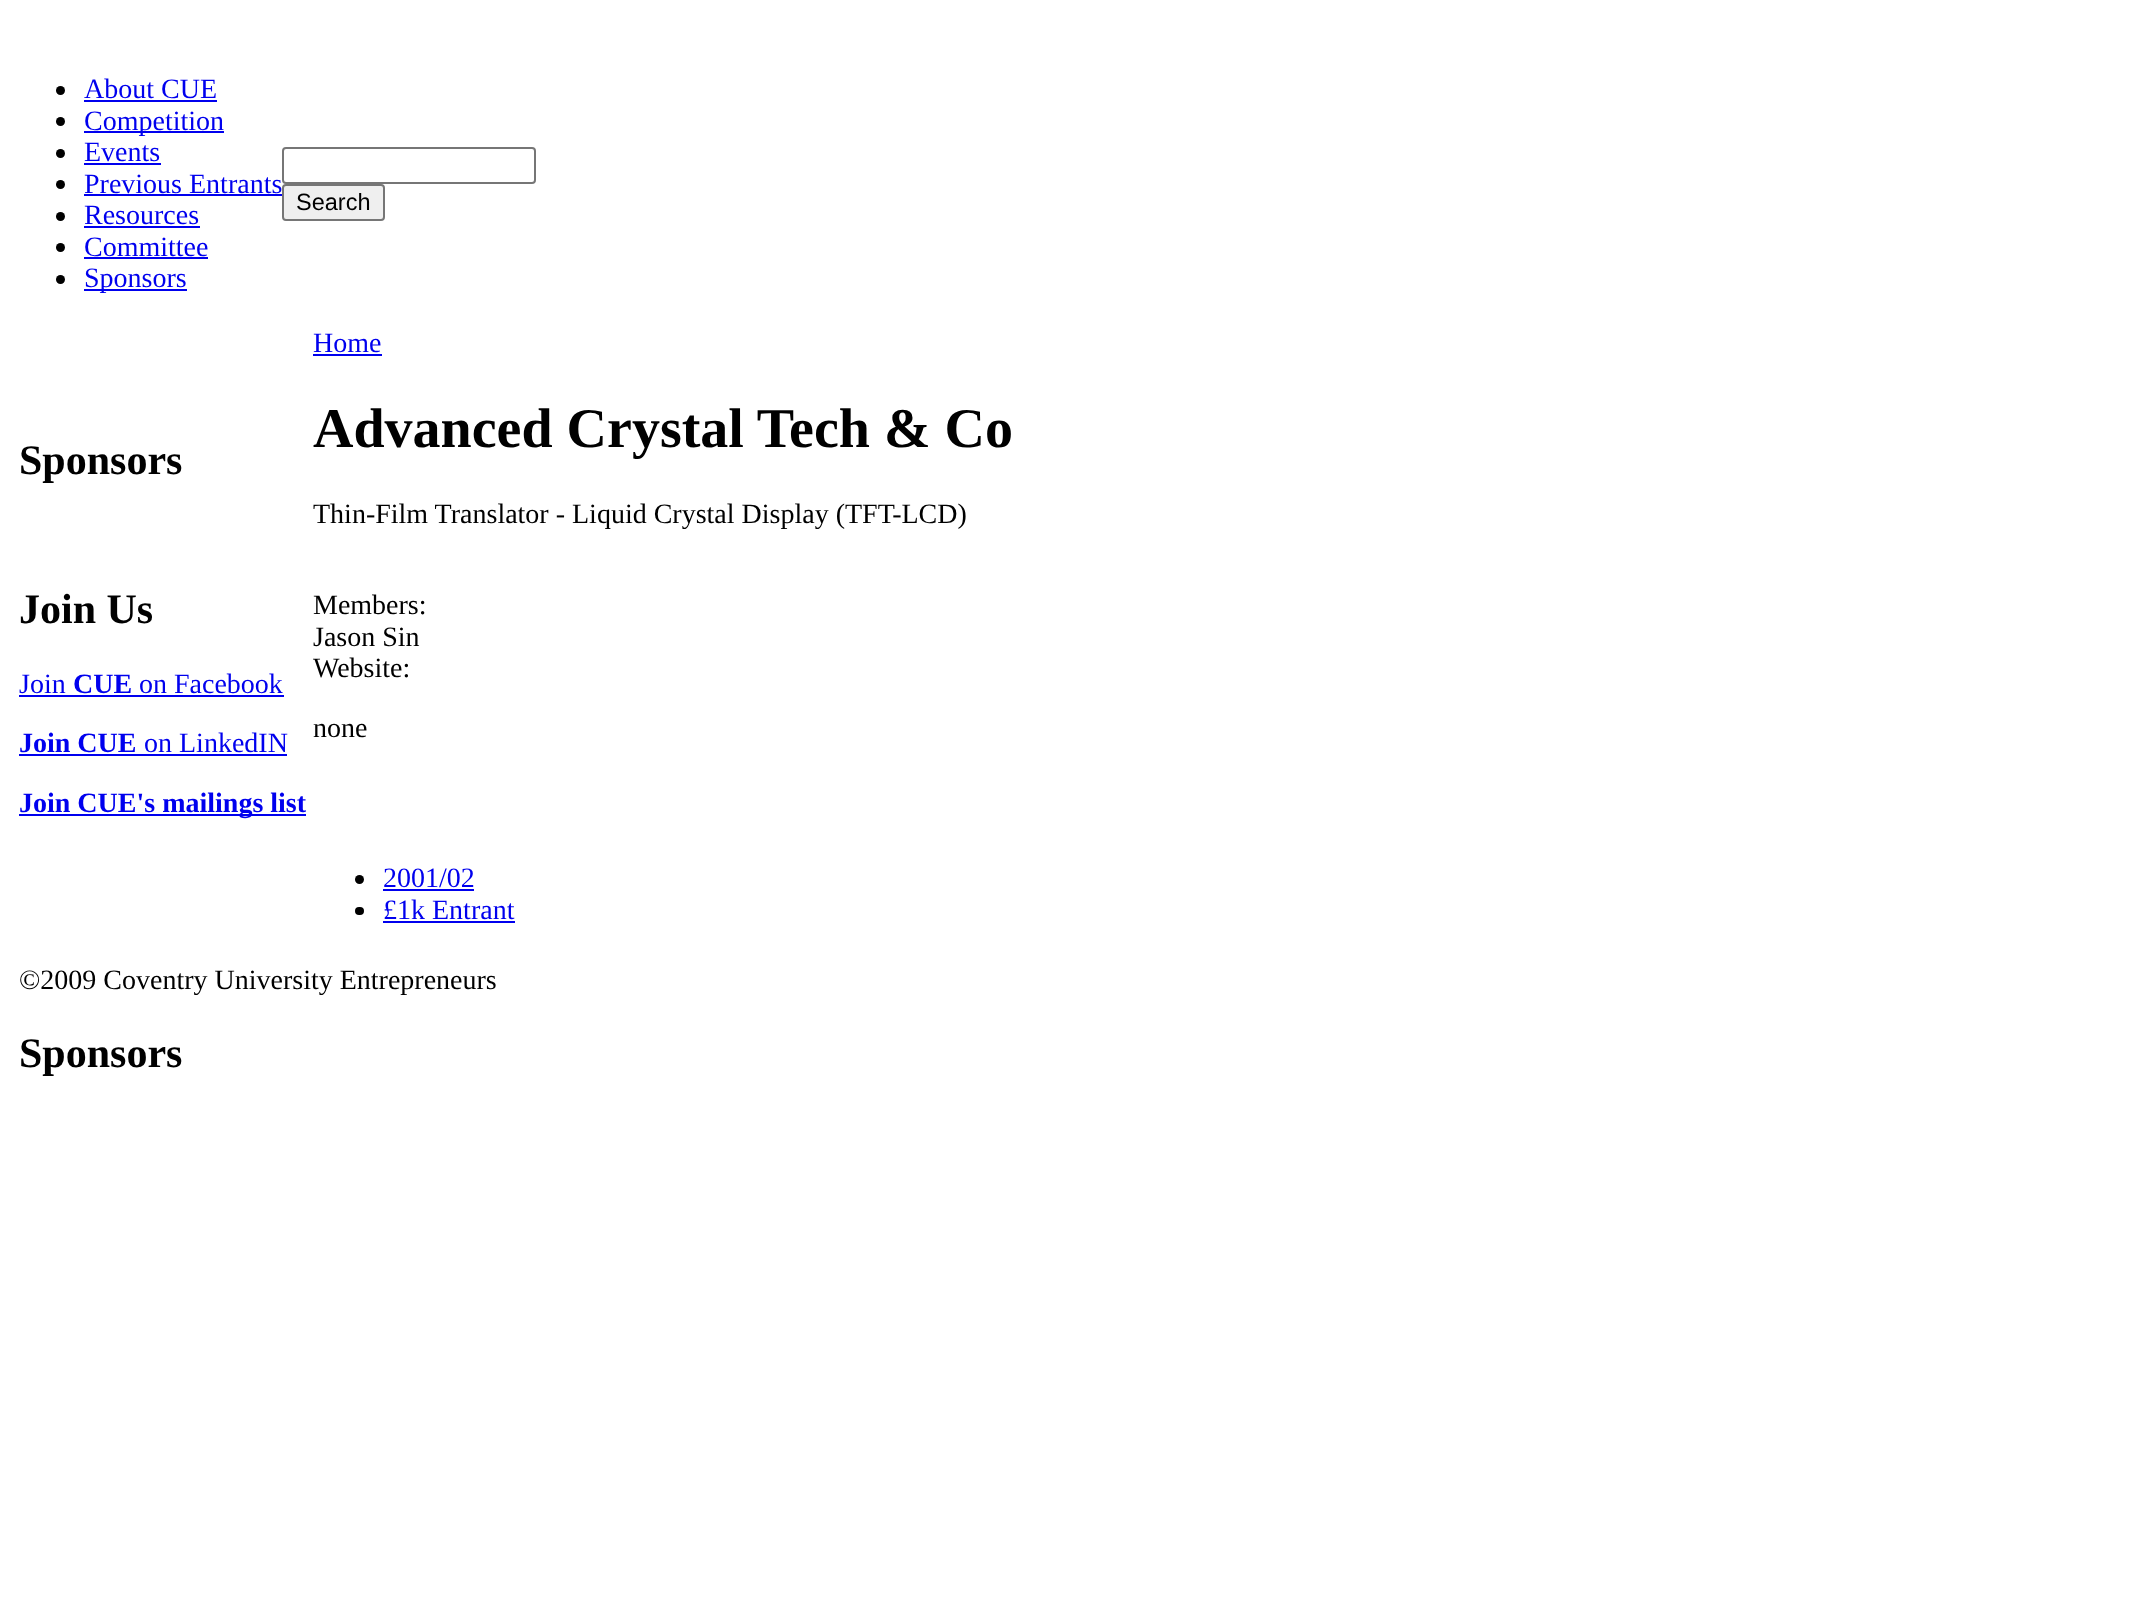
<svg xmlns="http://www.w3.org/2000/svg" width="2139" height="1623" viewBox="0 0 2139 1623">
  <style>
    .t1 { font: 28px Liberation Serif; fill: #00e; }
    .t2 { font: 23.5px Liberation Sans; fill: #000; }
    .t3 { font: bold 42px Liberation Serif; fill: #000; }
    .t4 { font: bold 28px Liberation Serif; fill: #00e; }
    .t5 { font: bold 56px Liberation Serif; fill: #000; }
    .t6 { font: 28px Liberation Serif; fill: #000; }
  </style>
  <rect width="100%" height="100%" fill="#fff"/>
  <circle cx="60.5" cy="90.5" r="4.5" fill="#000"/>
  <text x="84" y="98" class="t1">About CUE</text>
  <rect x="84" y="100" width="133" height="2" fill="#00e"/>
  <circle cx="60.5" cy="121.5" r="4.5" fill="#000"/>
  <rect x="84" y="131" width="140" height="2" fill="#00e"/>
  <text x="84" y="130" class="t1">Competition</text>
  <circle cx="60.5" cy="153.5" r="4.5" fill="#000"/>
  <text x="84" y="161" class="t1">Events</text>
  <rect x="84" y="163" width="77" height="2" fill="#00e"/>
  <circle cx="60.5" cy="184.5" r="4.5" fill="#000"/>
  <text x="84" y="193" class="t1">Previous Entrants</text>
  <rect x="84" y="194" width="198" height="2" fill="#00e"/>
  <circle cx="60.5" cy="216.5" r="4.5" fill="#000"/>
  <text x="84" y="224" class="t1">Resources</text>
  <rect x="84" y="226" width="116" height="2" fill="#00e"/>
  <circle cx="60.5" cy="247.5" r="4.5" fill="#000"/>
  <text x="84" y="256" class="t1">Committee</text>
  <rect x="84" y="257" width="124" height="2" fill="#00e"/>
  <circle cx="60.5" cy="279.5" r="4.5" fill="#000"/>
  <rect x="84" y="289" width="103" height="2" fill="#00e"/>
  <text x="84" y="287" class="t1">Sponsors</text>
  <rect x="283" y="148" width="252" height="35" rx="3" fill="none" stroke="#767676" stroke-width="2"/>
  <rect x="283" y="185" width="101" height="35" rx="3" fill="#efefef" stroke="#767676" stroke-width="2"/>
  <text x="296" y="210" class="t2">Search</text>
  <text x="19" y="474" class="t3">Sponsors</text>
  <text x="19" y="623" class="t3">Join Us</text>
  <text x="19" y="693" class="t1">Join</text>
  <rect x="19" y="695" width="265" height="2" fill="#00e"/>
  <text x="73" y="693" class="t4">CUE</text>
  <text x="139" y="693" class="t1">on Facebook</text>
  <text x="19" y="752" class="t4">Join CUE</text>
  <rect x="19" y="754" width="268" height="2" fill="#00e"/>
  <text x="144" y="752" class="t1">on LinkedIN</text>
  <rect x="19" y="814" width="287" height="2" fill="#00e"/>
  <text x="19" y="812" class="t4">Join CUE's mailings list</text>
  <text x="313" y="352" class="t1">Home</text>
  <rect x="313" y="354" width="69" height="2" fill="#00e"/>
  <text x="313" y="447" class="t5">Advanced Crystal Tech &amp; Co</text>
  <text x="313" y="523" class="t6">Thin-Film Translator - Liquid Crystal Display (TFT-LCD)</text>
  <text x="313" y="614" class="t6">Members:</text>
  <text x="313" y="646" class="t6">Jason Sin</text>
  <text x="313" y="677" class="t6">Website:</text>
  <text x="313" y="737" class="t6">none</text>
  <circle cx="359.5" cy="879.5" r="4.5" fill="#000"/>
  <text x="383" y="887" class="t1">2001/02</text>
  <rect x="383" y="889" width="91" height="2" fill="#00e"/>
  <rect x="355" y="907" width="9" height="8" rx="4" fill="#000"/>
  <text x="383" y="919" class="t1">£1k Entrant</text>
  <rect x="383" y="921" width="132" height="2" fill="#00e"/>
  <text x="19" y="989" class="t6">©2009 Coventry University Entrepreneurs</text>
  <text x="19" y="1067" class="t3">Sponsors</text>
</svg>
